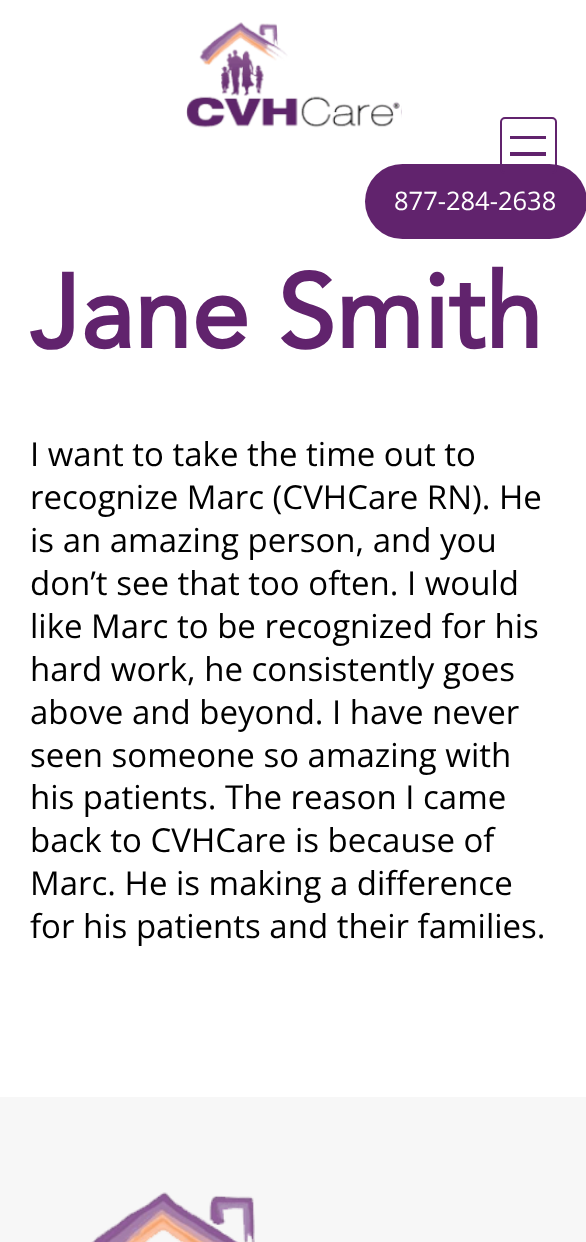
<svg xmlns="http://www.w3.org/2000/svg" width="586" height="1242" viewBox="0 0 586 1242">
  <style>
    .t1 { font: 25.5px Open Sans; fill: #fff; }
    .t2 { font: bold 103.5px Avenir; fill: #61236d; }
    .t3 { font: 33px Open Sans; fill: #000; }
  </style>
  <rect width="100%" height="100%" fill="#fff"/>
  <image x="186" y="22" width="216" height="106" href="images/1.png"/>
  <rect x="365" y="164" width="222" height="75" rx="37.5" fill="#61236d"/>
  <rect x="501" y="118" width="55" height="55" rx="4" fill="none" stroke="#61236d" stroke-width="2"/>
  <rect x="510" y="136" width="36" height="3" fill="#61236d"/>
  <rect x="510" y="152" width="36" height="4" fill="#61236d"/>
  <text x="394" y="210" class="t1">877-284-2638</text>
  <text x="30" y="348" class="t2">Jane Smith</text>
  <text x="30" y="466" class="t3">I want to take the time out to</text>
  <text x="30" y="509" class="t3">recognize Marc (CVHCare RN). He</text>
  <text x="30" y="552" class="t3">is an amazing person, and you</text>
  <text x="30" y="595" class="t3">don’t see that too often. I would</text>
  <text x="30" y="638" class="t3">like Marc to be recognized for his</text>
  <text x="30" y="681" class="t3">hard work, he consistently goes</text>
  <text x="30" y="724" class="t3">above and beyond. I have never</text>
  <text x="30" y="767" class="t3">seen someone so amazing with</text>
  <text x="30" y="809" class="t3">his patients. The reason I came</text>
  <text x="30" y="852" class="t3">back to CVHCare is because of</text>
  <text x="30" y="895" class="t3">Marc. He is making a difference</text>
  <text x="30" y="938" class="t3">for his patients and their families.</text>
  <rect x="0" y="1097" width="586" height="145" fill="#f7f7f7"/>
  <image x="91" y="1192" width="164" height="50" href="images/2.png"/>
</svg>
